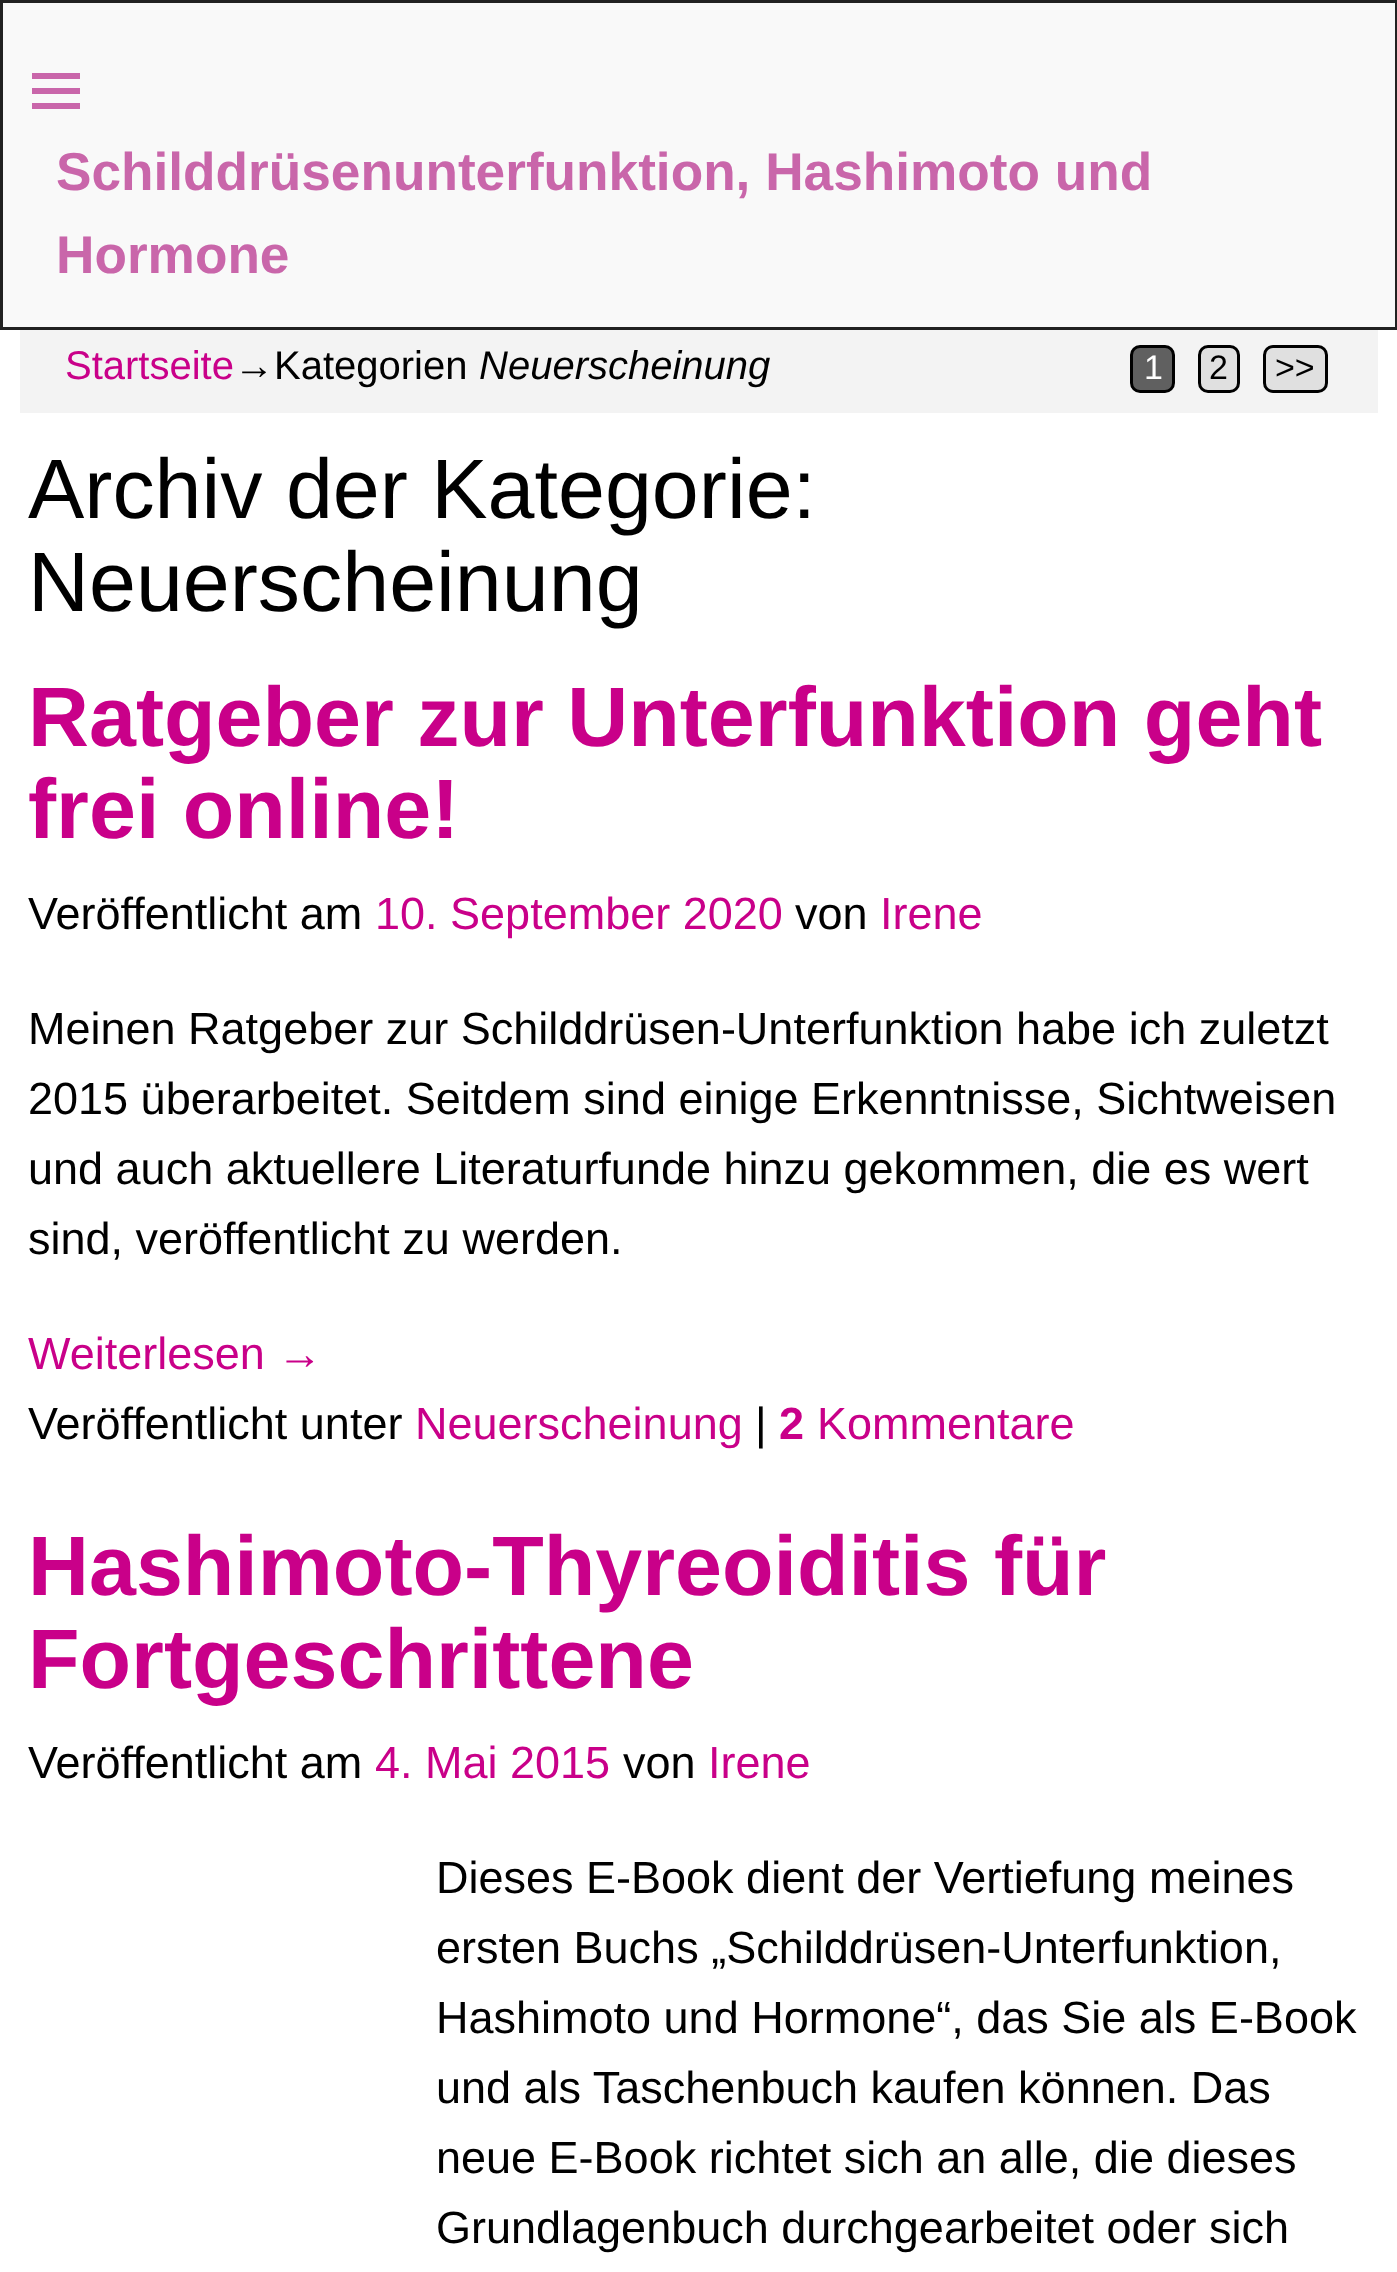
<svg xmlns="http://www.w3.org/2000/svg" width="1397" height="2272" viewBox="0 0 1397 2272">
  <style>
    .t1 { font: bold 53.2px Liberation Sans; fill: #c966aa; }
    .t2 { font: 40px Liberation Sans; fill: #c90089; }
    .t3 { font: 40px Liberation Sans; fill: #000; }
    .t4 { font: italic 40px Liberation Sans; fill: #000; }
    .t5 { font: 34px Liberation Sans; fill: #fff; }
    .t6 { font: 34px Liberation Sans; fill: #000; }
    .t7 { font: 84.4px Liberation Sans; fill: #000; }
    .t8 { font: bold 84.4px Liberation Sans; fill: #c90089; }
    .t9 { font: 45px Liberation Sans; fill: #000; }
    .t10 { font: 45px Liberation Sans; fill: #c90089; }
    .t11 { font: bold 45px Liberation Sans; fill: #c90089; }
  </style>
  <rect width="100%" height="100%" fill="#fff"/>
  <rect x="1.5" y="1.5" width="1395" height="327" fill="#f9f9f9" stroke="#222" stroke-width="3"/>
  <path d="M32 109V103H80V109ZM32 73H80V79H32ZM32 94V88H80V94Z" fill="#c966aa"/>
  <text x="56" y="190" class="t1">Schilddrüsenunterfunktion, Hashimoto und</text>
  <text x="56" y="273" class="t1">Hormone</text>
  <rect x="20" y="330" width="1358" height="83" fill="#f3f3f3"/>
  <text x="65" y="379" class="t2">Startseite</text>
  <text x="234" y="379" class="t3">→Kategorien</text>
  <text x="479" y="379" class="t4">Neuerscheinung</text>
  <rect x="1131.5" y="346.5" width="42" height="45" rx="8.5" fill="#606060" stroke="#000" stroke-width="3"/>
  <text x="1144" y="379" class="t5">1</text>
  <rect x="1199.5" y="346.5" width="39" height="45" rx="8.5" fill="#e0e0e0" stroke="#000" stroke-width="3"/>
  <text x="1209" y="379" class="t6">2</text>
  <rect x="1264.5" y="346.5" width="62" height="45" rx="8.5" fill="#e0e0e0" stroke="#000" stroke-width="3"/>
  <text x="1275" y="379" class="t6">&gt;&gt;</text>
  <text x="28" y="518" class="t7">Archiv der Kategorie:</text>
  <text x="28" y="611" class="t7">Neuerscheinung</text>
  <text x="28" y="746" class="t8">Ratgeber zur Unterfunktion geht</text>
  <text x="28" y="838" class="t8">frei online!</text>
  <text x="28" y="929" class="t9">Veröffentlicht am</text>
  <text x="375" y="929" class="t10">10. September 2020</text>
  <text x="795" y="929" class="t9">von</text>
  <text x="880" y="929" class="t10">Irene</text>
  <text x="28" y="1044" class="t9">Meinen Ratgeber zur Schilddrüsen-Unterfunktion habe ich zuletzt</text>
  <text x="28" y="1114" class="t9">2015 überarbeitet. Seitdem sind einige Erkenntnisse, Sichtweisen</text>
  <text x="28" y="1184" class="t9">und auch aktuellere Literaturfunde hinzu gekommen, die es wert</text>
  <text x="28" y="1254" class="t9">sind, veröffentlicht zu werden.</text>
  <text x="28" y="1369" class="t10">Weiterlesen →</text>
  <text x="28" y="1439" class="t9">Veröffentlicht unter</text>
  <text x="415" y="1439" class="t10">Neuerscheinung</text>
  <text x="755" y="1439" class="t9">|</text>
  <text x="779" y="1439" class="t11">2</text>
  <text x="817" y="1439" class="t10">Kommentare</text>
  <text x="28" y="1595" class="t8">Hashimoto-Thyreoiditis für</text>
  <text x="28" y="1688" class="t8">Fortgeschrittene</text>
  <text x="28" y="1778" class="t9">Veröffentlicht am</text>
  <text x="375" y="1778" class="t10">4. Mai 2015</text>
  <text x="623" y="1778" class="t9">von</text>
  <text x="708" y="1778" class="t10">Irene</text>
  <text x="436" y="1893" class="t9">Dieses E-Book dient der Vertiefung meines</text>
  <text x="436" y="1963" class="t9">ersten Buchs „Schilddrüsen-Unterfunktion,</text>
  <text x="436" y="2033" class="t9">Hashimoto und Hormone“, das Sie als E-Book</text>
  <text x="436" y="2103" class="t9">und als Taschenbuch kaufen können. Das</text>
  <text x="436" y="2173" class="t9">neue E-Book richtet sich an alle, die dieses</text>
  <text x="436" y="2243" class="t9">Grundlagenbuch durchgearbeitet oder sich</text>
</svg>
